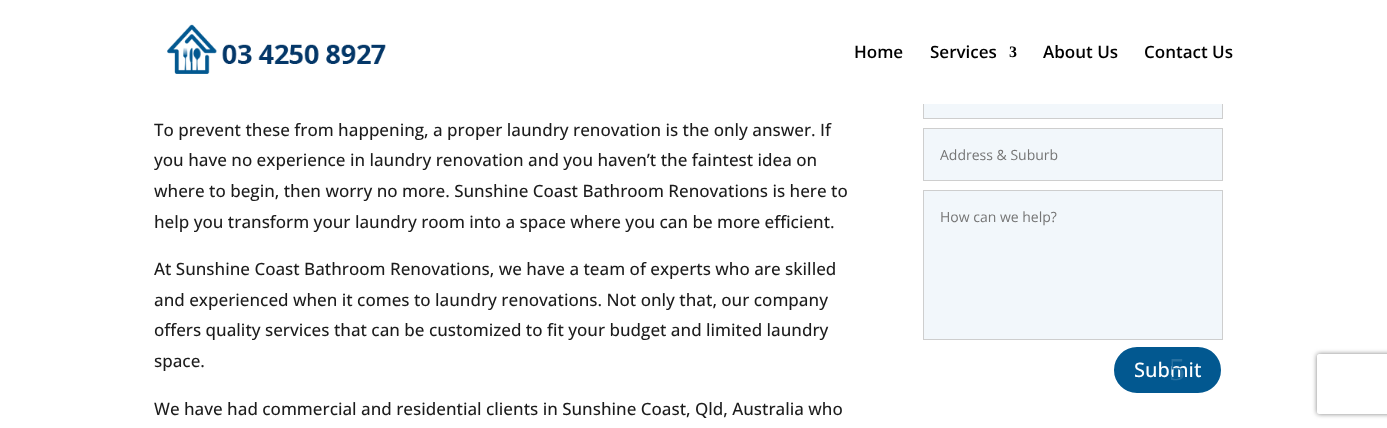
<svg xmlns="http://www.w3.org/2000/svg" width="1387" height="428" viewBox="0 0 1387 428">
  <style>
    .t1 { font: 600 17px Open Sans; fill: #000; }
    .t2 { font: bold 16px Liberation Serif; fill: #000; }
    .t3 { font: 500 17px Open Sans; fill: #1c1c1c; }
    .t4 { font: 14px Open Sans; fill: #757575; }
    .t5 { font: 500 20px Open Sans; fill: #fff; }
    .t6 { font: 32px Liberation Serif; fill: #2871a1; }
  </style>
  <defs>
    <clipPath id="clip1"><path d="M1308 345H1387V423H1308ZM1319 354H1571C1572 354 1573 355 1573 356V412C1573 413 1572 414 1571 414H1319C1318 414 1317 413 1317 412V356C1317 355 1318 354 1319 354Z" clip-rule="evenodd"/></clipPath>
  </defs>
  <rect width="100%" height="100%" fill="#fff"/>
  <rect x="924" y="104" width="298" height="14" fill="#f2f7fb"/>
  <rect x="923.5" y="66.5" width="299" height="52" fill="none" stroke="#cecece"/>
  <rect x="923" y="66" width="300" height="38" fill="#fff"/>
  <image x="167" y="24" width="219" height="50" href="images/1.png"/>
  <text x="854" y="58" class="t1">Home</text>
  <text x="930" y="58" class="t1">Services</text>
  <text x="1009" y="57" class="t2">3</text>
  <text x="1043" y="58" class="t1">About Us</text>
  <text x="1144" y="58" class="t1">Contact Us</text>
  <text x="154" y="136" class="t3">To prevent these from happening, a proper laundry renovation is the only answer. If</text>
  <text x="154" y="166" class="t3">you have no experience in laundry renovation and you haven’t the faintest idea on</text>
  <text x="154" y="197" class="t3">where to begin, then worry no more. Sunshine Coast Bathroom Renovations is here to</text>
  <text x="154" y="228" class="t3">help you transform your laundry room into a space where you can be more efficient.</text>
  <text x="154" y="275" class="t3">At Sunshine Coast Bathroom Renovations, we have a team of experts who are skilled</text>
  <text x="154" y="306" class="t3">and experienced when it comes to laundry renovations. Not only that, our company</text>
  <text x="154" y="336" class="t3">offers quality services that can be customized to fit your budget and limited laundry</text>
  <text x="154" y="367" class="t3">space.</text>
  <text x="154" y="415" class="t3">We have had commercial and residential clients in Sunshine Coast, Qld, Australia who</text>
  <rect x="923.5" y="128.5" width="299" height="52" fill="#f2f7fb" stroke="#cecece"/>
  <text x="940" y="160" class="t4">Address &amp; Suburb</text>
  <rect x="923.5" y="190.5" width="299" height="149" fill="#f2f7fb" stroke="#cecece"/>
  <text x="940" y="222" class="t4">How can we help?</text>
  <rect x="1113" y="346" width="109" height="48" rx="24" fill="#025890" stroke="#fff" stroke-width="2"/>
  <text x="1134" y="377" class="t5">Submit</text>
  <text x="1169" y="380" class="t6">5</text>
  <g clip-path="url(#clip1)">
    <rect x="1317" y="354" width="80" height="60" rx="2" fill="#808080" filter="blur(2.5px)"/>
  </g>
</svg>
